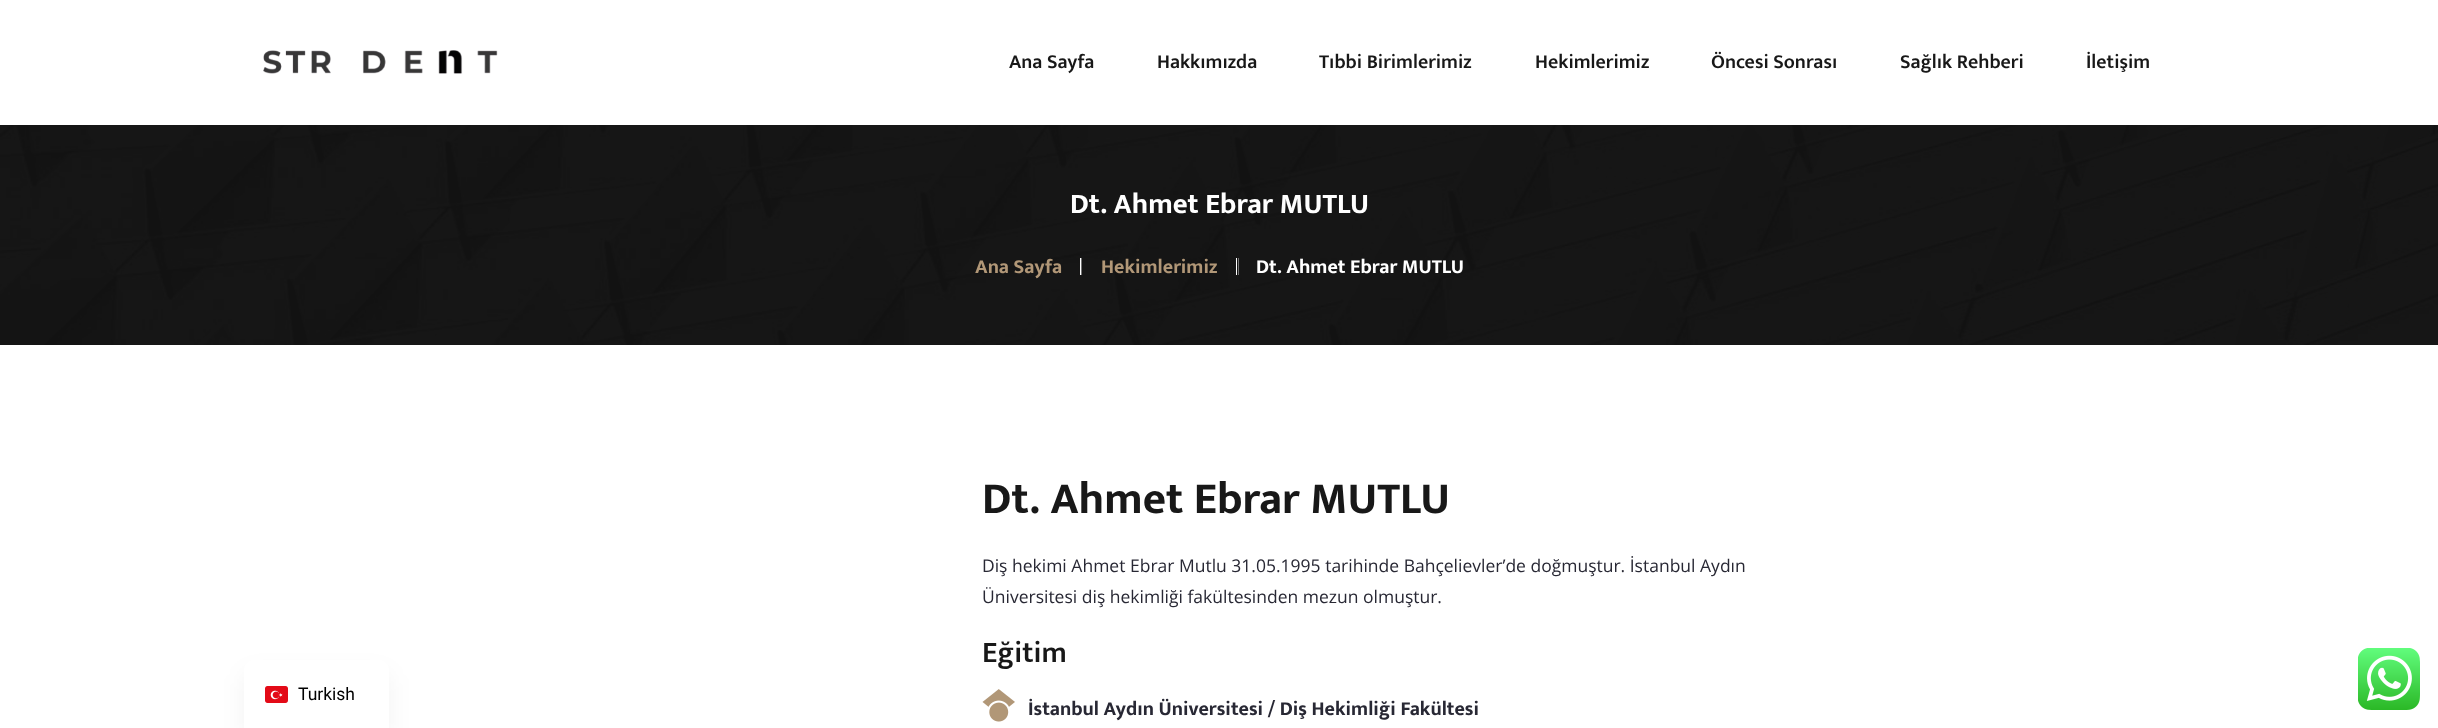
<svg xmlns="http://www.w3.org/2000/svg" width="2438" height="728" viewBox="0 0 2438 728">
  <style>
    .t1 { font: 17.5px Roboto; fill: #000; }
    .t2 { font: 600 20px Mukta; fill: #181818; }
    .t3 { font: bold 28.75px Mukta; fill: #fff; }
    .t4 { font: bold 20px Mukta; fill: #b19777; }
    .t5 { font: bold 20px Mukta; fill: #fff; }
    .t6 { font: bold 45px Mukta; fill: #181818; }
    .t7 { font: 17.5px Open Sans; fill: #282834; }
    .t8 { font: 600 30px Mukta; fill: #181818; }
    .t9 { font: bold 20px Mukta; fill: #282834; }
  </style>
  <rect width="100%" height="100%" fill="#fff"/>
  <rect x="244" y="673" width="145" height="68" rx="10" fill="#0000000d" filter="blur(12.5px)"/>
  <path d="M254 660H379C384.5 660 389 664.5 389 670V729H244V670C244 664.5 248.5 660 254 660Z" fill="#fff"/>
  <image x="265" y="686" width="23" height="17" href="images/1.png"/>
  <text x="298" y="700" class="t1">Turkish</text>
  <image x="263" y="50" width="235" height="24" href="images/2.png"/>
  <text x="1009" y="68" class="t2">Ana Sayfa</text>
  <text x="1157" y="68" class="t2">Hakkımızda</text>
  <text x="1319" y="68" class="t2">Tıbbi Birimlerimiz</text>
  <text x="1535" y="68" class="t2">Hekimlerimiz</text>
  <text x="1711" y="68" class="t2">Öncesi Sonrası</text>
  <text x="1900" y="68" class="t2">Sağlık Rehberi</text>
  <text x="2086" y="68" class="t2">İletişim</text>
  <image x="0" y="125" width="2438" height="220" href="images/3.png"/>
  <text x="1070" y="213" class="t3">Dt. Ahmet Ebrar MUTLU</text>
  <text x="975" y="273" class="t4">Ana Sayfa</text>
  <rect x="1081" y="258" width="1" height="17" fill="#737373"/>
  <rect x="1080" y="258" width="1" height="17" fill="#fff"/>
  <text x="1101" y="273" class="t4">Hekimlerimiz</text>
  <rect x="1238" y="258" width="1" height="17" fill="#737373"/>
  <rect x="1236" y="258" width="1" height="17" fill="#fff"/>
  <text x="1256" y="273" class="t5">Dt. Ahmet Ebrar MUTLU</text>
  <text x="982" y="513" class="t6">Dt. Ahmet Ebrar MUTLU</text>
  <text x="982" y="572" class="t7">Diş hekimi Ahmet Ebrar Mutlu 31.05.1995 tarihinde Bahçelievler’de doğmuştur. İstanbul Aydın</text>
  <text x="982" y="603" class="t7">Üniversitesi diş hekimliği fakültesinden mezun olmuştur.</text>
  <text x="982" y="662" class="t8">Eğitim</text>
  <image x="982" y="689" width="33" height="33" href="images/4.png"/>
  <text x="1028" y="715" class="t9">İstanbul Aydın Üniversitesi / Diş Hekimliği Fakültesi</text>
  <image x="2358" y="648" width="62" height="62" href="images/5.png"/>
</svg>
